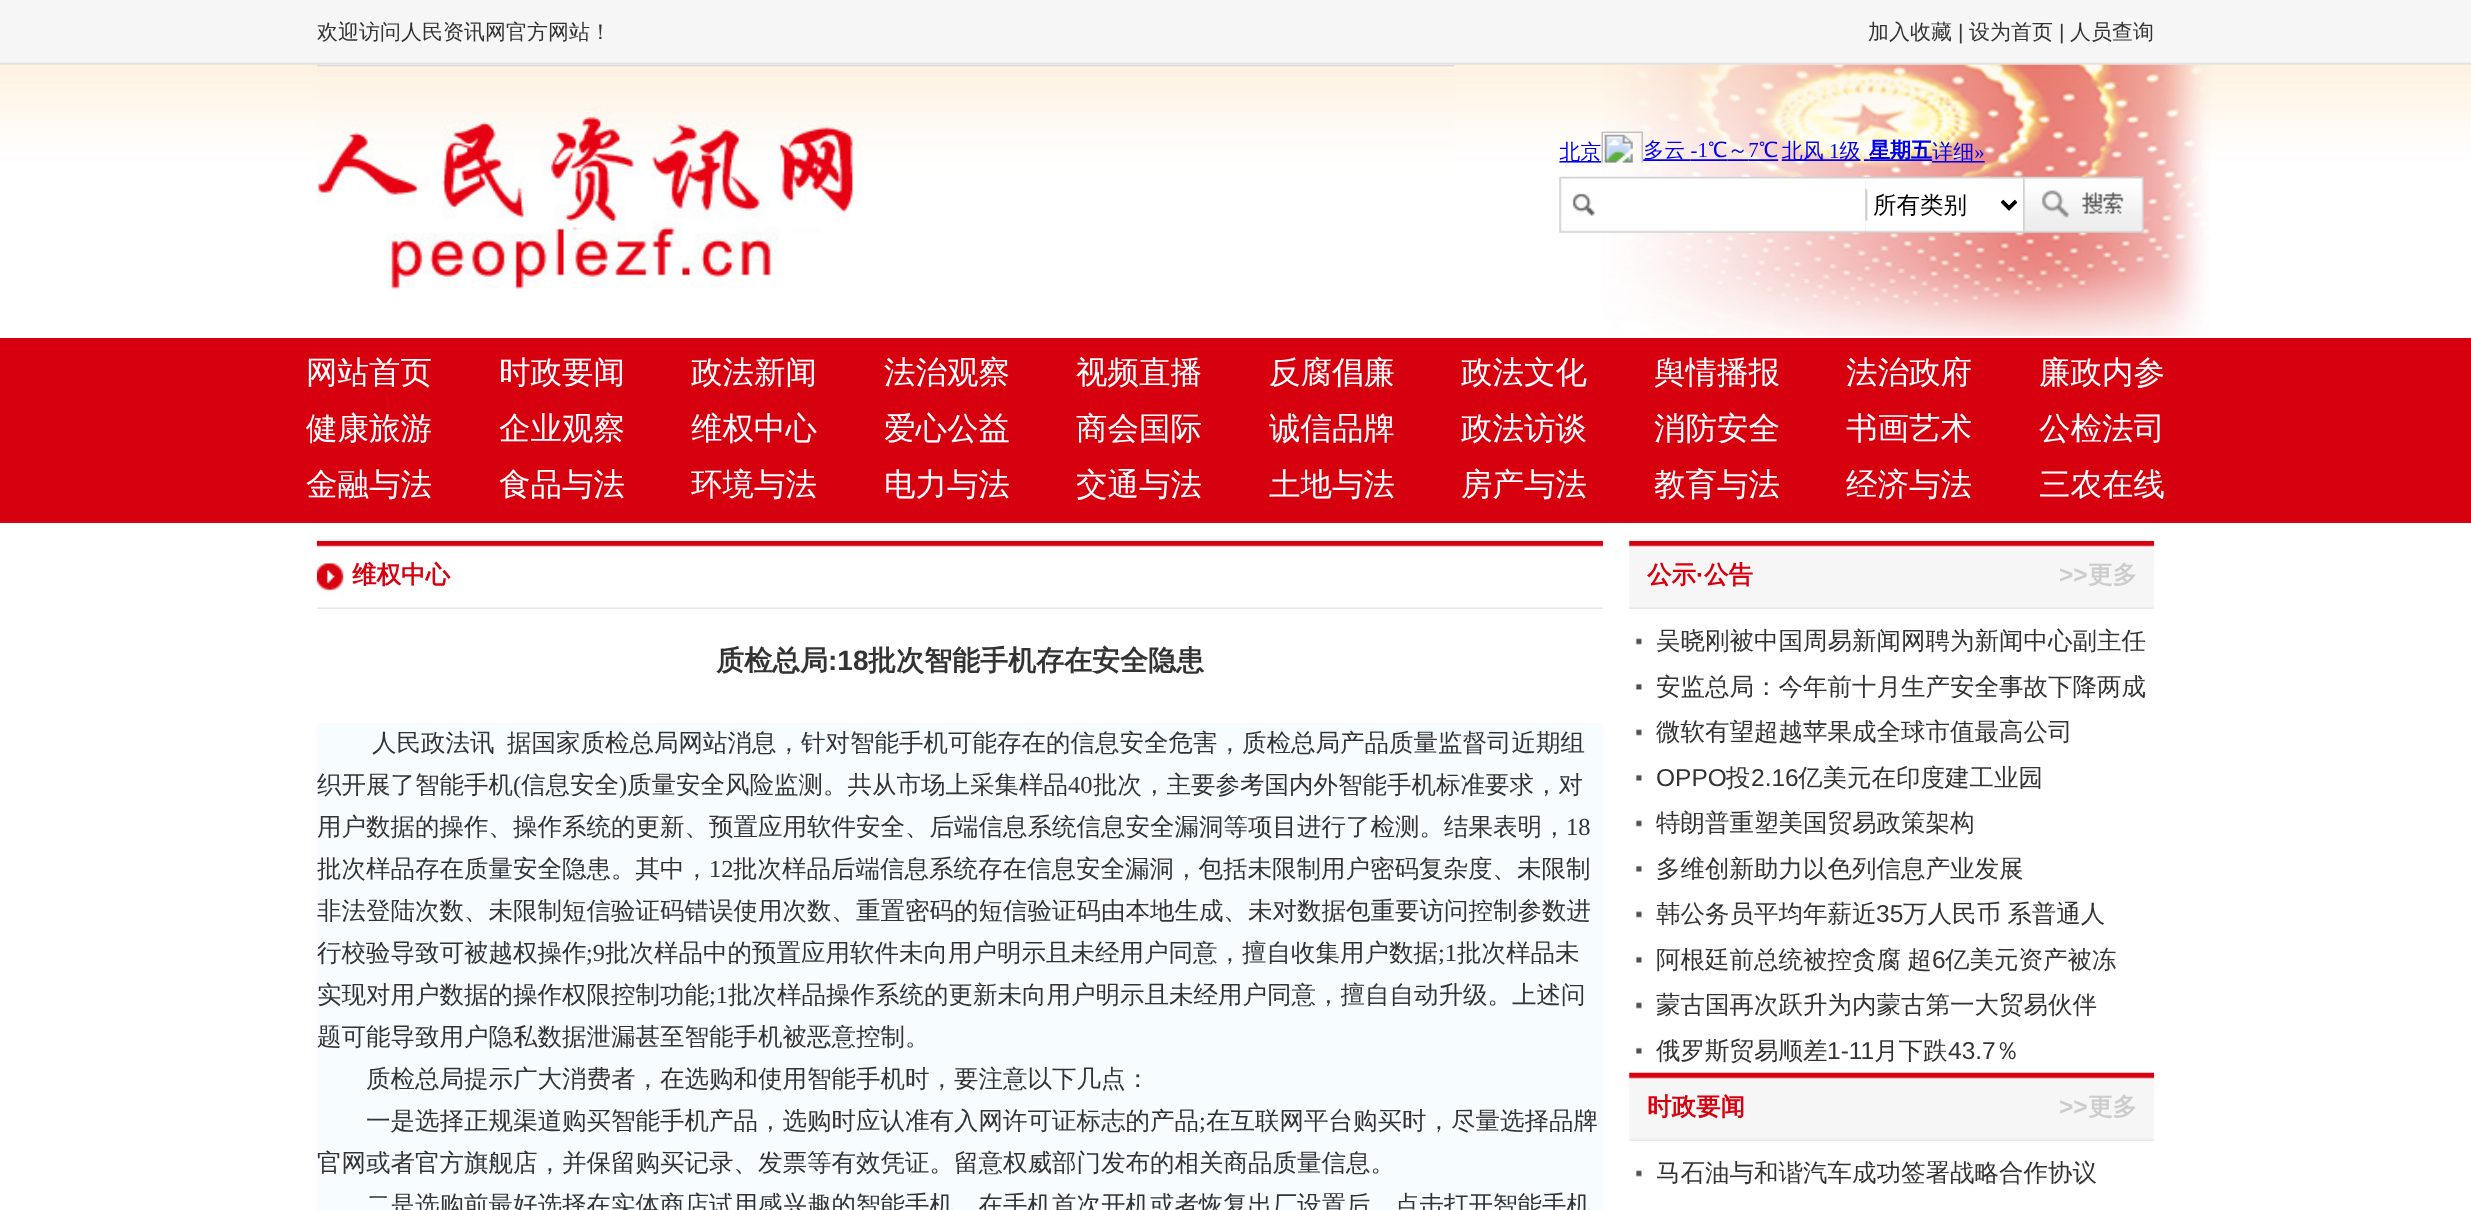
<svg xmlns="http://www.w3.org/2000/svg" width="2471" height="1210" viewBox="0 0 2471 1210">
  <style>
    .t1 { font: 500 21px WenQuanYi Zen Hei; fill: #333; }
    .t2 { font: 21px Liberation Sans; fill: #333; }
    .t3 { font: 500 23.5px WenQuanYi Zen Hei; fill: #000; }
    .t4 { font: 500 31.5px WenQuanYi Zen Hei; fill: #fff; }
    .t5 { font: bold 24.5px WenQuanYi Zen Hei; fill: #d8000f; }
    .t6 { font: bold 28px WenQuanYi Zen Hei; fill: #333; }
    .t7 { font: bold 28px Liberation Sans; fill: #333; }
    .t8 { font: 500 24.5px WenQuanYi Zen Hei; fill: #333; }
    .t9 { font: 24.5px Liberation Serif; fill: #333; }
    .t10 { font: bold 24.5px Liberation Sans; fill: #d8000f; }
    .t11 { font: bold 24.5px Liberation Sans; fill: #ccc; }
    .t12 { font: bold 24.5px WenQuanYi Zen Hei; fill: #ccc; }
    .t13 { font: 24.5px Liberation Sans; fill: #333; }
  </style>
  <rect width="100%" height="100%" fill="#fff"/>
  <image x="0" y="0" width="2471" height="65" href="images/1.png"/>
  <text x="317" y="39" class="t1">欢迎访问人民资讯网官方网站！</text>
  <text x="1868" y="39" class="t1">加入收藏</text>
  <text x="1958" y="39" class="t2">|</text>
  <text x="1969" y="39" class="t1">设为首页</text>
  <text x="2059" y="39" class="t2">|</text>
  <text x="2070" y="39" class="t1">人员查询</text>
  <image x="0" y="64" width="2471" height="272" href="images/2.png"/>
  <image x="317" y="65" width="1138" height="225" href="images/3.png"/>
  <image x="1559" y="131" width="426" height="32" href="images/4.png"/>
  <image x="1559" y="176" width="307" height="57" href="images/5.png"/>
  <image x="1865" y="176" width="158" height="57" href="images/6.png"/>
  <path d="M2002 201L2009 208L2016 201" fill="none" stroke="#000" stroke-width="3.5"/>
  <text x="1873" y="213" class="t3">所有类别</text>
  <image x="2023" y="176" width="121" height="57" href="images/7.png"/>
  <rect x="0" y="338" width="2471" height="185" fill="#d7000f"/>
  <text x="306" y="383" class="t4">网站首页</text>
  <text x="499" y="383" class="t4">时政要闻</text>
  <text x="691" y="383" class="t4">政法新闻</text>
  <text x="884" y="383" class="t4">法治观察</text>
  <text x="1076" y="383" class="t4">视频直播</text>
  <text x="1269" y="383" class="t4">反腐倡廉</text>
  <text x="1461" y="383" class="t4">政法文化</text>
  <text x="1654" y="383" class="t4">舆情播报</text>
  <text x="1846" y="383" class="t4">法治政府</text>
  <text x="2039" y="383" class="t4">廉政内参</text>
  <text x="306" y="439" class="t4">健康旅游</text>
  <text x="499" y="439" class="t4">企业观察</text>
  <text x="691" y="439" class="t4">维权中心</text>
  <text x="884" y="439" class="t4">爱心公益</text>
  <text x="1076" y="439" class="t4">商会国际</text>
  <text x="1269" y="439" class="t4">诚信品牌</text>
  <text x="1461" y="439" class="t4">政法访谈</text>
  <text x="1654" y="439" class="t4">消防安全</text>
  <text x="1846" y="439" class="t4">书画艺术</text>
  <text x="2039" y="439" class="t4">公检法司</text>
  <text x="306" y="495" class="t4">金融与法</text>
  <text x="499" y="495" class="t4">食品与法</text>
  <text x="691" y="495" class="t4">环境与法</text>
  <text x="884" y="495" class="t4">电力与法</text>
  <text x="1076" y="495" class="t4">交通与法</text>
  <text x="1269" y="495" class="t4">土地与法</text>
  <text x="1461" y="495" class="t4">房产与法</text>
  <text x="1654" y="495" class="t4">教育与法</text>
  <text x="1846" y="495" class="t4">经济与法</text>
  <text x="2039" y="495" class="t4">三农在线</text>
  <image x="316" y="540" width="1287" height="69" href="images/8.png"/>
  <text x="352" y="583" class="t5">维权中心</text>
  <text x="716" y="670" class="t6">质检总局</text>
  <text x="828" y="670" class="t7">:18</text>
  <text x="868" y="670" class="t6">批次智能手机存在安全隐患</text>
  <rect x="317" y="723" width="1286" height="487" fill="#f7fdff"/>
  <text x="372" y="751" class="t8">人民政法讯</text>
  <text x="507" y="751" class="t8">据国家质检总局网站消息，针对智能手机可能存在的信息安全危害，质检总局产品质量监督司近期组</text>
  <text x="317" y="793" class="t8">织开展了智能手机</text>
  <text x="513" y="793" class="t9">(</text>
  <text x="521" y="793" class="t8">信息安全</text>
  <text x="619" y="793" class="t9">)</text>
  <text x="627" y="793" class="t8">质量安全风险监测。共从市场上采集样品</text>
  <text x="1068" y="793" class="t9">40</text>
  <text x="1093" y="793" class="t8">批次，主要参考国内外智能手机标准要求，对</text>
  <text x="317" y="835" class="t8">用户数据的操作、操作系统的更新、预置应用软件安全、后端信息系统信息安全漏洞等项目进行了检测。结果表明，</text>
  <text x="1566" y="835" class="t9">18</text>
  <text x="317" y="877" class="t8">批次样品存在质量安全隐患。其中，</text>
  <text x="709" y="877" class="t9">12</text>
  <text x="733" y="877" class="t8">批次样品后端信息系统存在信息安全漏洞，包括未限制用户密码复杂度、未限制</text>
  <text x="317" y="919" class="t8">非法登陆次数、未限制短信验证码错误使用次数、重置密码的短信验证码由本地生成、未对数据包重要访问控制参数进</text>
  <text x="317" y="961" class="t8">行校验导致可被越权操作</text>
  <text x="586" y="961" class="t9">;9</text>
  <text x="605" y="961" class="t8">批次样品中的预置应用软件未向用户明示且未经用户同意，擅自收集用户数据</text>
  <text x="1438" y="961" class="t9">;1</text>
  <text x="1457" y="961" class="t8">批次样品未</text>
  <text x="317" y="1003" class="t8">实现对用户数据的操作权限控制功能</text>
  <text x="709" y="1003" class="t9">;1</text>
  <text x="728" y="1003" class="t8">批次样品操作系统的更新未向用户明示且未经用户同意，擅自自动升级。上述问</text>
  <text x="317" y="1045" class="t8">题可能导致用户隐私数据泄漏甚至智能手机被恶意控制。</text>
  <text x="366" y="1087" class="t8">质检总局提示广大消费者，在选购和使用智能手机时，要注意以下几点：</text>
  <text x="366" y="1129" class="t8">一是选择正规渠道购买智能手机产品，选购时应认准有入网许可证标志的产品</text>
  <text x="1199" y="1129" class="t9">;</text>
  <text x="1206" y="1129" class="t8">在互联网平台购买时，尽量选择品牌</text>
  <text x="317" y="1171" class="t8">官网或者官方旗舰店，并保留购买记录、发票等有效凭证。留意权威部门发布的相关商品质量信息。</text>
  <text x="366" y="1213" class="t8">二是选购前最好选择在实体商店试用感兴趣的智能手机。在手机首次开机或者恢复出厂设置后，点击打开智能手机</text>
  <image x="1629" y="540" width="526" height="69" href="images/9.png"/>
  <text x="1647" y="583" class="t5">公示</text>
  <text x="1696" y="583" class="t10">·</text>
  <text x="1704" y="583" class="t5">公告</text>
  <text x="2059" y="583" class="t11">&gt;&gt;</text>
  <text x="2088" y="583" class="t12">更多</text>
  <image x="1635" y="638" width="7" height="7" href="images/10.png"/>
  <text x="1656" y="649" class="t8">吴晓刚被中国周易新闻网聘为新闻中心副主任</text>
  <image x="1635" y="683" width="7" height="7" href="images/11.png"/>
  <text x="1656" y="695" class="t8">安监总局：今年前十月生产安全事故下降两成</text>
  <image x="1635" y="729" width="7" height="7" href="images/10.png"/>
  <text x="1656" y="740" class="t8">微软有望超越苹果成全球市值最高公司</text>
  <image x="1635" y="774" width="7" height="7" href="images/11.png"/>
  <text x="1656" y="786" class="t13">OPPO</text>
  <text x="1726" y="786" class="t8">投</text>
  <text x="1751" y="786" class="t13">2.16</text>
  <text x="1798" y="786" class="t8">亿美元在印度建工业园</text>
  <image x="1635" y="820" width="7" height="7" href="images/10.png"/>
  <text x="1656" y="831" class="t8">特朗普重塑美国贸易政策架构</text>
  <image x="1635" y="865" width="7" height="7" href="images/11.png"/>
  <text x="1656" y="877" class="t8">多维创新助力以色列信息产业发展</text>
  <image x="1635" y="911" width="7" height="7" href="images/10.png"/>
  <text x="1656" y="922" class="t8">韩公务员平均年薪近</text>
  <text x="1876" y="922" class="t13">35</text>
  <text x="1903" y="922" word-spacing="-1" class="t8">万人民币 系普通人</text>
  <image x="1635" y="956" width="7" height="7" href="images/11.png"/>
  <text x="1656" y="968" word-spacing="-1" class="t8">阿根廷前总统被控贪腐 超</text>
  <text x="1932" y="968" class="t13">6</text>
  <text x="1945" y="968" class="t8">亿美元资产被冻</text>
  <image x="1635" y="1002" width="7" height="7" href="images/10.png"/>
  <text x="1656" y="1013" class="t8">蒙古国再次跃升为内蒙古第一大贸易伙伴</text>
  <image x="1635" y="1047" width="7" height="7" href="images/11.png"/>
  <text x="1656" y="1059" class="t8">俄罗斯贸易顺差</text>
  <text x="1827" y="1059" class="t13">1-11</text>
  <text x="1874" y="1059" class="t8">月下跌</text>
  <text x="1948" y="1059" class="t13">43.7</text>
  <text x="1995" y="1059" class="t8">％</text>
  <image x="1629" y="1072" width="526" height="69" href="images/12.png"/>
  <text x="1647" y="1115" class="t5">时政要闻</text>
  <text x="2059" y="1115" class="t11">&gt;&gt;</text>
  <text x="2088" y="1115" class="t12">更多</text>
  <image x="1635" y="1170" width="7" height="7" href="images/10.png"/>
  <text x="1656" y="1181" class="t8">马石油与和谐汽车成功签署战略合作协议</text>
</svg>
